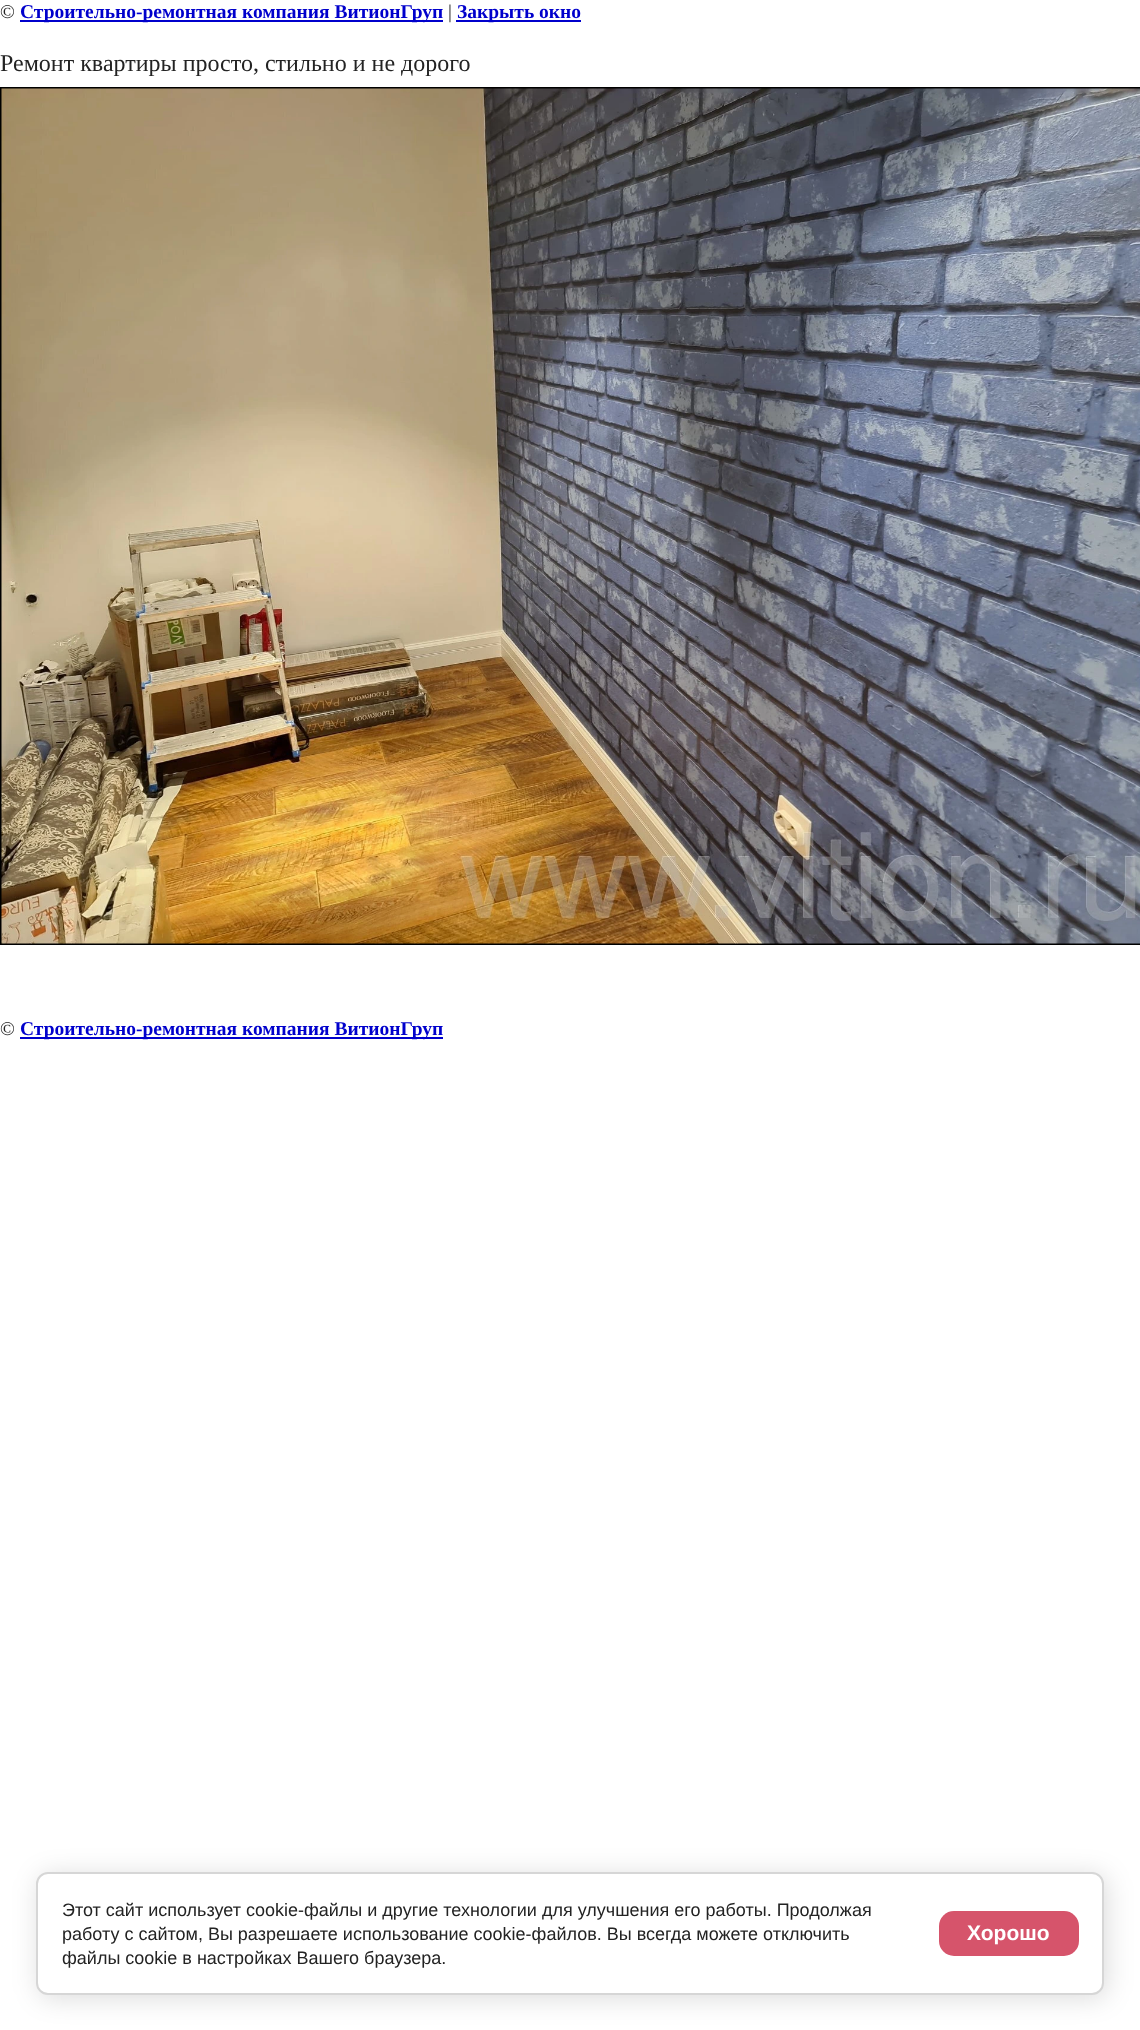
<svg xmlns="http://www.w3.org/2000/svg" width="1140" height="2030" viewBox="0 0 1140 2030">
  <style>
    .t1 { font: 19.5px Liberation Serif; fill: #232323; }
    .t2 { font: bold 19.5px Liberation Serif; fill: #00c; }
    .t3 { font: 24px Liberation Serif; fill: #232323; }
    .t4 { font: 18px Liberation Sans; fill: #232323; }
    .t5 { font: bold 21px Liberation Sans; fill: #fff; }
  </style>
  <rect width="100%" height="100%" fill="#fff"/>
  <text x="0" y="18" class="t1">©</text>
  <rect x="20" y="20" width="423" height="2" fill="#00c"/>
  <text x="20" y="18" class="t2">Строительно-ремонтная компания ВитионГруп</text>
  <text x="448" y="18" class="t1">|</text>
  <rect x="456" y="20" width="125" height="2" fill="#00c"/>
  <text x="457" y="18" class="t2">Закрыть окно</text>
  <text x="0" y="71" class="t3">Ремонт квартиры просто, стильно и не дорого</text>
  <rect x="1" y="88" width="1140" height="856" fill="none" stroke="#000" stroke-width="2"/>
  <image x="1" y="88" width="1139" height="856" href="images/1.png"/>
  <text x="0" y="1035" class="t1">©</text>
  <rect x="20" y="1037" width="423" height="2" fill="#00c"/>
  <text x="20" y="1035" class="t2">Строительно-ремонтная компания ВитионГруп</text>
  <rect x="39" y="1875" width="1068" height="123" rx="12" fill="#00000024" filter="blur(13.5px)"/>
  <rect x="37" y="1873" width="1066" height="121" rx="11" fill="#fff" stroke="#d6d6d6" stroke-width="2"/>
  <text x="62" y="1916" class="t4">Этот сайт использует cookie-файлы и другие технологии для улучшения его работы. Продолжая</text>
  <text x="62" y="1940" class="t4">работу с сайтом, Вы разрешаете использование cookie-файлов. Вы всегда можете отключить</text>
  <text x="62" y="1964" class="t4">файлы cookie в настройках Вашего браузера.</text>
  <rect x="939" y="1911" width="140" height="45" rx="15" fill="#d6546b"/>
  <text x="967" y="1940" class="t5">Хорошо</text>
</svg>
